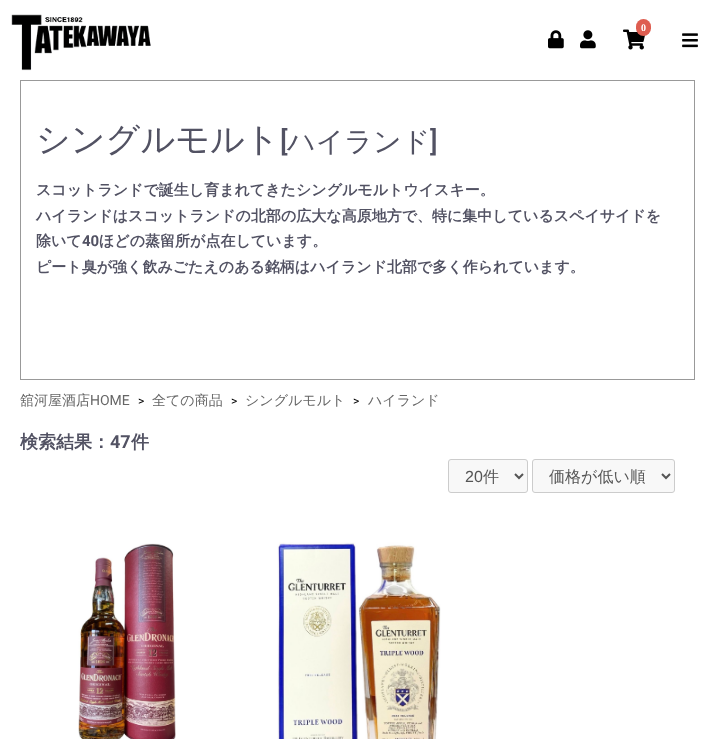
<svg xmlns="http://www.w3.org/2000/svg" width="715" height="739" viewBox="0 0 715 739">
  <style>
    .t1 { font: bold 10px Liberation Serif; fill: #fff; }
    .t2 { font: 500 34px WenQuanYi Zen Hei; fill: #525263; }
    .t3 { font: 500 28px Roboto; fill: #525263; }
    .t4 { font: 500 28px WenQuanYi Zen Hei; fill: #525263; }
    .t5 { font: bold 15px WenQuanYi Zen Hei; fill: #525263; }
    .t6 { font: bold 15px Roboto; fill: #525263; }
    .t7 { font: 500 14px WenQuanYi Zen Hei; fill: #666; }
    .t8 { font: 14px Roboto; fill: #666; }
    .t9 { font: 12px Roboto; fill: #000; }
    .t10 { font: bold 18px WenQuanYi Zen Hei; fill: #525263; }
    .t11 { font: bold 18px Roboto; fill: #525263; }
    .t12 { font: 16px Liberation Sans; fill: #555; }
    .t13 { font: 500 16px WenQuanYi Zen Hei; fill: #555; }
  </style>
  <rect width="100%" height="100%" fill="#fff"/>
  <image x="11" y="14" width="140" height="57" href="images/1.png"/>
  <image x="623" y="29" width="22" height="21" href="images/2.png"/>
  <rect x="636" y="19" width="15" height="17" rx="7.5" fill="#de5d50"/>
  <text x="641" y="31" class="t1">0</text>
  <image x="548" y="30" width="16" height="19" href="images/3.png"/>
  <image x="580" y="30" width="16" height="19" href="images/4.png"/>
  <image x="682" y="33" width="16" height="15" href="images/5.png"/>
  <rect x="20.5" y="80.5" width="674" height="299" fill="none" stroke="#999"/>
  <text x="36" y="151" class="t2">シングルモルト</text>
  <text x="280" y="151" class="t3">[</text>
  <text x="287" y="151" class="t4">ハイランド</text>
  <text x="430" y="151" class="t3">]</text>
  <text x="36" y="195" class="t5">スコットランドで誕生し育まれてきたシングルモルトウイスキー。</text>
  <text x="36" y="221" class="t5">ハイランドはスコットランドの北部の広大な高原地方で、特に集中しているスペイサイドを</text>
  <text x="36" y="246" class="t5">除いて</text>
  <text x="82" y="246" class="t6">40</text>
  <text x="99" y="246" class="t5">ほどの蒸留所が点在しています。</text>
  <text x="36" y="272" class="t5">ピート臭が強く飲みごたえのある銘柄はハイランド北部で多く作られています。</text>
  <text x="20" y="405" class="t7">舘河屋酒店</text>
  <text x="90" y="405" class="t8">HOME</text>
  <text x="138" y="405" class="t9">&gt;</text>
  <text x="152" y="405" class="t7">全ての商品</text>
  <text x="231" y="405" class="t9">&gt;</text>
  <text x="245" y="405" class="t7">シングルモルト</text>
  <text x="353" y="405" class="t9">&gt;</text>
  <text x="368" y="405" class="t7">ハイランド</text>
  <text x="20" y="448" class="t10">検索結果：</text>
  <text x="110" y="448" class="t11">47</text>
  <text x="131" y="448" class="t10">件</text>
  <rect x="448.5" y="459.5" width="79" height="33" rx="2.5" fill="#f8f8f8" stroke="#ccc"/>
  <path d="M515 474L519 478L523 474" fill="none" stroke="#555" stroke-width="2"/>
  <text x="465" y="482" class="t12">20</text>
  <text x="483" y="482" class="t13">件</text>
  <rect x="532.5" y="459.5" width="142" height="33" rx="2.5" fill="#f8f8f8" stroke="#ccc"/>
  <path d="M662 474L666 478L670 474" fill="none" stroke="#555" stroke-width="2"/>
  <text x="549" y="482" class="t13">価格が低い順</text>
  <image x="78" y="543" width="98" height="196" href="images/6.png"/>
  <image x="277" y="542" width="164" height="197" href="images/7.png"/>
</svg>
